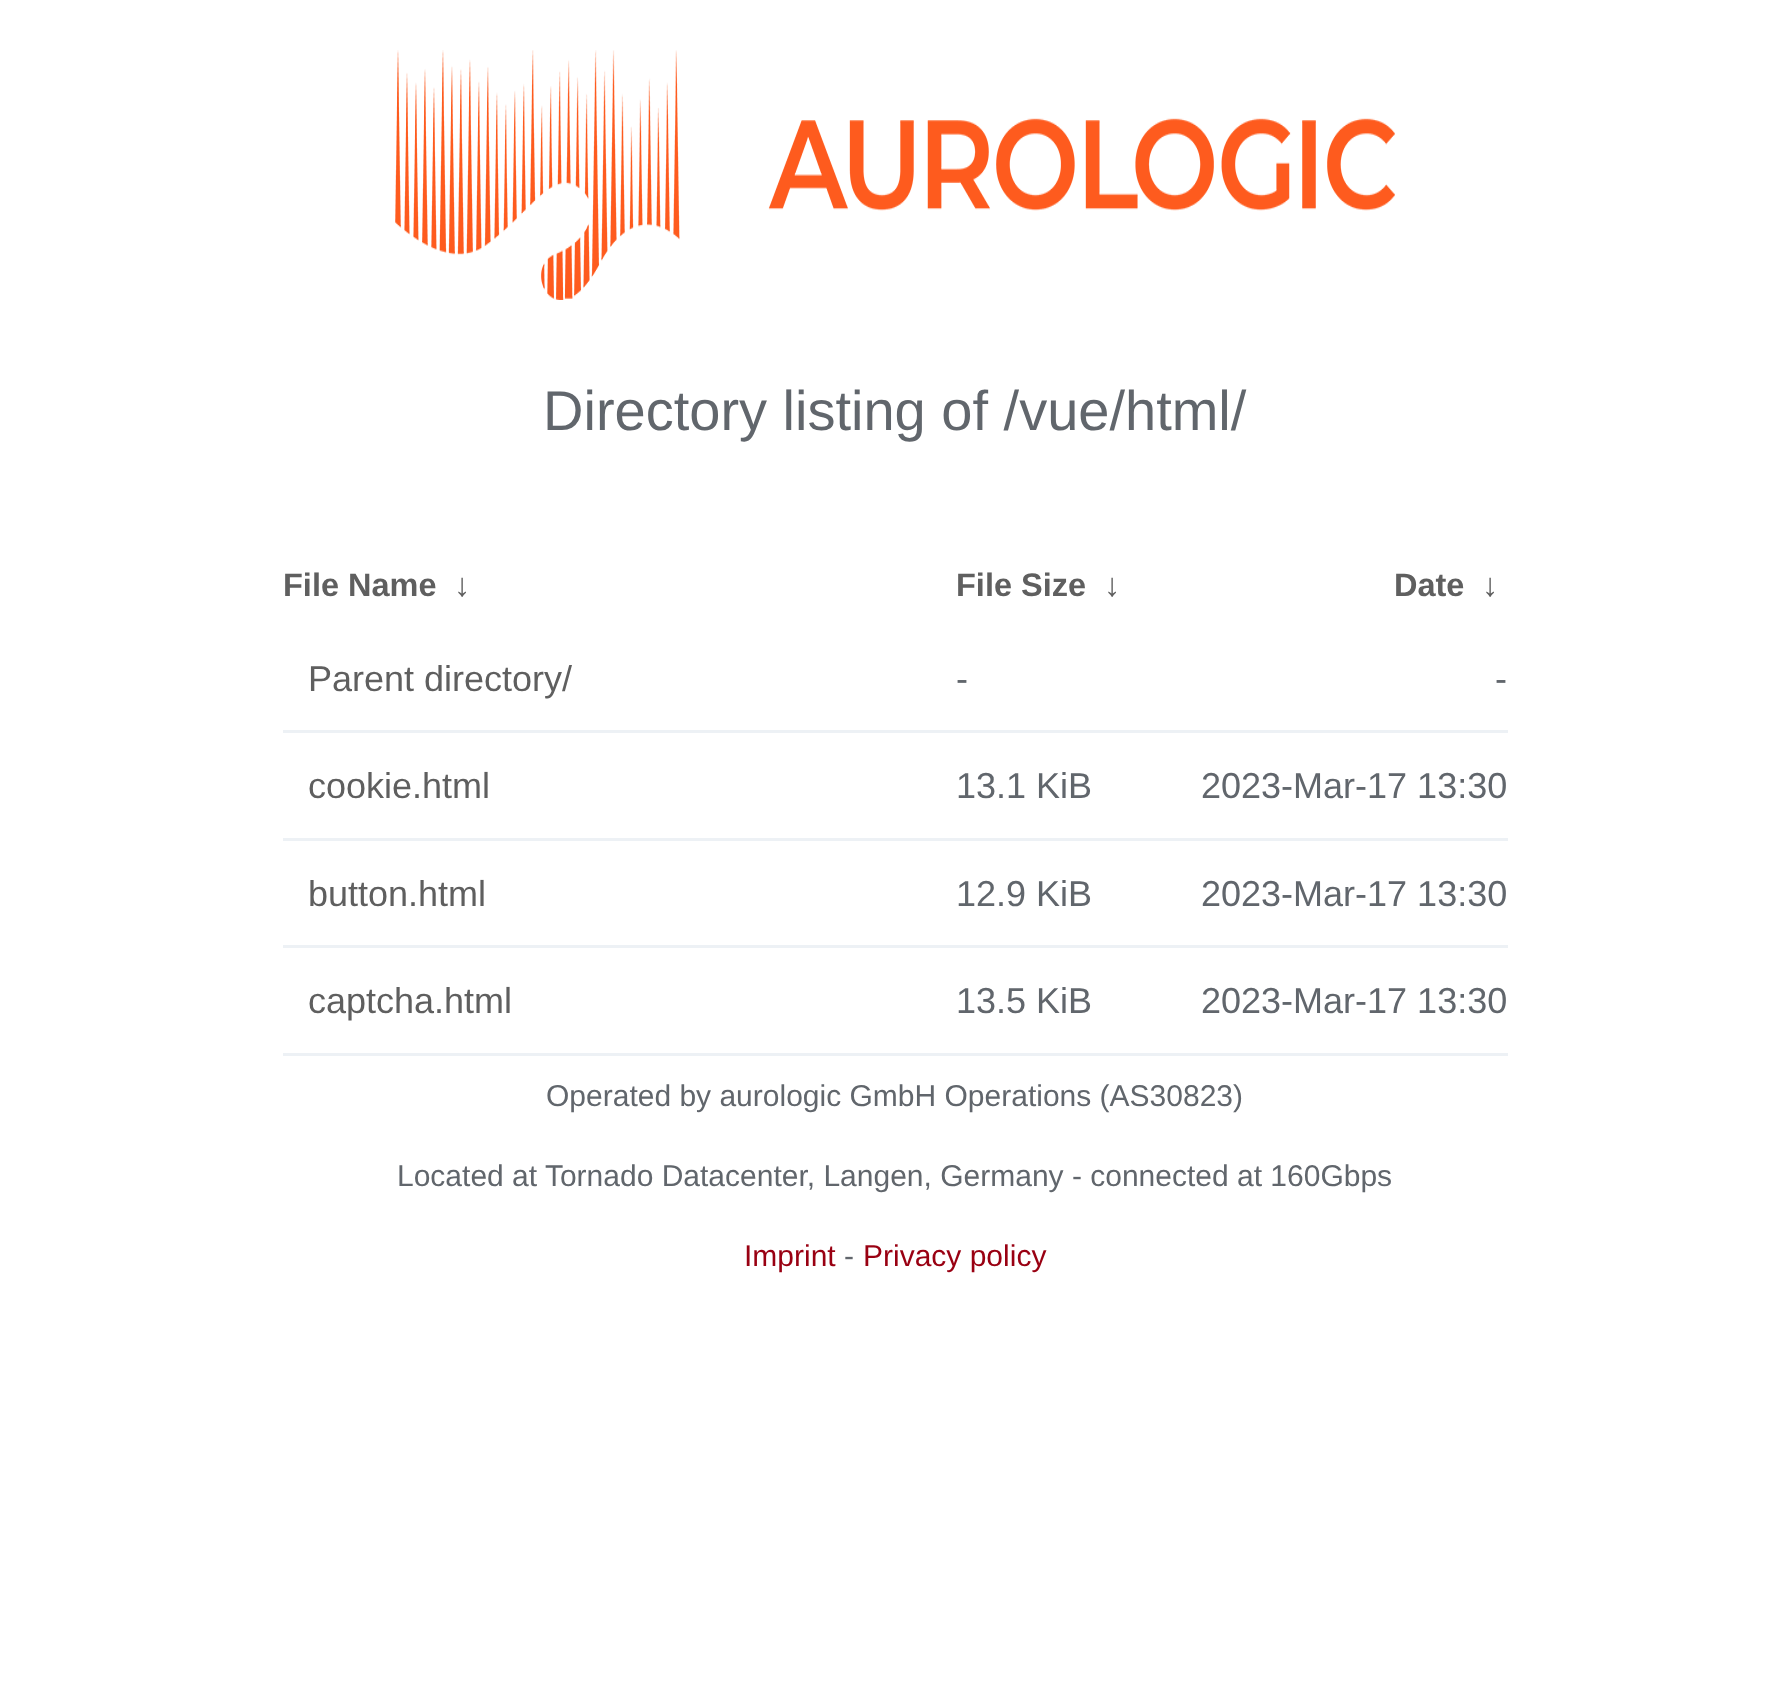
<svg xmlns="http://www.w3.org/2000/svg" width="1790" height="1684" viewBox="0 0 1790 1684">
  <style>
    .t1 { font: 56px Liberation Sans; fill: #61666c; }
    .t2 { font: bold 32.5px Liberation Sans; fill: #5f5f5f; }
    .t3 { font: 36px Liberation Sans; fill: #5f5f5f; }
    .t4 { font: 36px Liberation Sans; fill: #61666c; }
    .t5 { font: 30px Liberation Sans; fill: #61666c; }
    .t6 { font: 30px Liberation Sans; fill: #990012; }
  </style>
  <rect width="100%" height="100%" fill="#fff"/>
  <image x="395" y="50" width="1000" height="250" href="images/1.png"/>
  <text x="543" y="430" class="t1">Directory listing of /vue/html/</text>
  <text x="283" y="596" class="t2">File Name</text>
  <text x="454" y="596" class="t2">↓</text>
  <text x="956" y="596" class="t2">File Size</text>
  <text x="1104" y="596" class="t2">↓</text>
  <text x="1394" y="596" class="t2">Date</text>
  <text x="1482" y="596" class="t2">↓</text>
  <text x="308" y="691" class="t3">Parent directory/</text>
  <text x="956" y="691" class="t4">-</text>
  <rect x="283" y="730" width="1225" height="3" fill="#edf1f5"/>
  <text x="1495" y="691" class="t4">-</text>
  <text x="308" y="798" class="t3">cookie.html</text>
  <text x="956" y="798" class="t4">13.1 KiB</text>
  <rect x="283" y="838" width="1225" height="3" fill="#edf1f5"/>
  <text x="1201" y="798" class="t4">2023-Mar-17 13:30</text>
  <text x="308" y="906" class="t3">button.html</text>
  <text x="956" y="906" class="t4">12.9 KiB</text>
  <rect x="283" y="945" width="1225" height="3" fill="#edf1f5"/>
  <text x="1201" y="906" class="t4">2023-Mar-17 13:30</text>
  <text x="308" y="1013" class="t3">captcha.html</text>
  <text x="956" y="1013" class="t4">13.5 KiB</text>
  <rect x="283" y="1053" width="1225" height="3" fill="#edf1f5"/>
  <text x="1201" y="1013" class="t4">2023-Mar-17 13:30</text>
  <text x="546" y="1106" class="t5">Operated by aurologic GmbH Operations (AS30823)</text>
  <text x="397" y="1186" class="t5">Located at Tornado Datacenter, Langen, Germany - connected at 160Gbps</text>
  <text x="744" y="1266" class="t6">Imprint</text>
  <text x="844" y="1266" class="t5">-</text>
  <text x="863" y="1266" class="t6">Privacy policy</text>
</svg>
